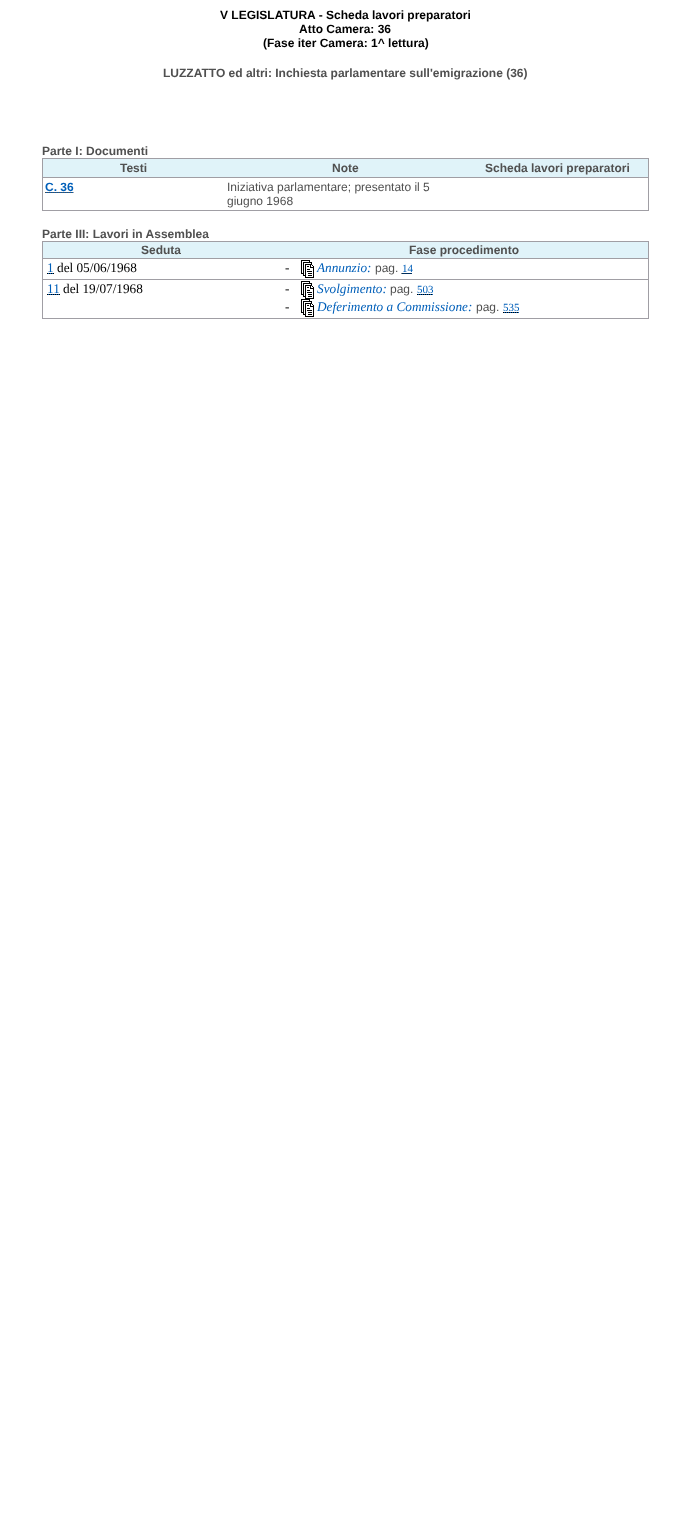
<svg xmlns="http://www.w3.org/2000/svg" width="691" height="1540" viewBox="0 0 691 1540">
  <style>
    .t1 { font: bold 12px Liberation Sans; fill: #000; }
    .t2 { font: bold 12px Liberation Sans; fill: #505050; }
    .t3 { font: bold 12px Liberation Sans; fill: #005fb9; }
    .t4 { font: 12px Liberation Sans; fill: #505050; }
    .t5 { font: 13.25px Liberation Serif; fill: #005fb9; }
    .t6 { font: 13.25px Liberation Serif; fill: #000; }
    .t7 { font: italic 13.25px Liberation Serif; fill: #005fb9; }
    .t8 { font: 11px Liberation Serif; fill: #005fb9; }
  </style>
  <rect width="100%" height="100%" fill="#fff"/>
  <text x="220" y="19" class="t1">V LEGISLATURA - Scheda lavori preparatori</text>
  <text x="299" y="33" class="t1">Atto Camera: 36</text>
  <text x="263" y="47" class="t1">(Fase iter Camera: 1^ lettura)</text>
  <text x="163" y="77" class="t2">LUZZATTO ed altri: Inchiesta parlamentare sull'emigrazione (36)</text>
  <text x="42" y="155" class="t2">Parte I: Documenti</text>
  <rect x="42" y="158" width="607" height="53" fill="#a09ea4"/>
  <rect x="43" y="159" width="605" height="18" fill="#e0f3f9"/>
  <text x="120" y="172" class="t2">Testi</text>
  <text x="332" y="172" class="t2">Note</text>
  <text x="485" y="172" class="t2">Scheda lavori preparatori</text>
  <rect x="43" y="178" width="605" height="32" fill="#fff"/>
  <text x="45" y="191" class="t3">C. 36</text>
  <rect x="45" y="192" width="28" height="1" fill="#005fb9"/>
  <path d="M45 192.5H73.5" fill="none" stroke="#505050" stroke-dasharray="1 1"/>
  <text x="227" y="191" class="t4">Iniziativa parlamentare; presentato il 5</text>
  <text x="227" y="205" class="t4">giugno 1968</text>
  <text x="42" y="238" class="t2">Parte III: Lavori in Assemblea</text>
  <rect x="42" y="241" width="607" height="78" fill="#a09ea4"/>
  <rect x="43" y="242" width="605" height="16" fill="#e0f3f9"/>
  <text x="141" y="254" class="t2">Seduta</text>
  <text x="409" y="254" class="t2">Fase procedimento</text>
  <rect x="43" y="259" width="605" height="20" fill="#fff"/>
  <text x="47" y="272" class="t5">1</text>
  <rect x="47" y="273" width="7" height="1" fill="#005fb9"/>
  <path d="M47 273.5H48M49 273.5H50M51 273.5H52M53 273.5H54" fill="none" stroke="#000"/>
  <text x="57" y="272" class="t6">del 05/06/1968</text>
  <text x="285" y="272" class="t6">-</text>
  <image x="301" y="260" width="13" height="18" href="images/1.png"/>
  <text x="317" y="272" class="t7">Annunzio:</text>
  <text x="375" y="272" class="t4">pag.</text>
  <text x="402" y="272" class="t8">14</text>
  <rect x="402" y="273" width="10" height="1" fill="#005fb9"/>
  <path d="M401.5 273.5H412" fill="none" stroke="#000" stroke-dasharray="1 1"/>
  <rect x="43" y="280" width="605" height="38" fill="#fff"/>
  <text x="47" y="293" class="t5">11</text>
  <rect x="47" y="294" width="13" height="1" fill="#005fb9"/>
  <path d="M47 294.5H60" fill="none" stroke="#000" stroke-dasharray="1 1"/>
  <text x="63" y="293" class="t6">del 19/07/1968</text>
  <text x="285" y="293" class="t6">-</text>
  <image x="301" y="281" width="13" height="18" href="images/1.png"/>
  <text x="317" y="293" class="t7">Svolgimento:</text>
  <text x="390" y="293" class="t4">pag.</text>
  <text x="417" y="293" class="t8">503</text>
  <rect x="417" y="294" width="16" height="1" fill="#005fb9"/>
  <path d="M417 294.5H433" fill="none" stroke="#000" stroke-dasharray="1 1"/>
  <text x="285" y="311" class="t6">-</text>
  <image x="301" y="299" width="13" height="18" href="images/1.png"/>
  <text x="317" y="311" class="t7">Deferimento a Commissione:</text>
  <text x="476" y="311" class="t4">pag.</text>
  <text x="503" y="311" class="t8">535</text>
  <rect x="503" y="312" width="16" height="1" fill="#005fb9"/>
  <path d="M503 312.5H519" fill="none" stroke="#000" stroke-dasharray="1 1"/>
</svg>
